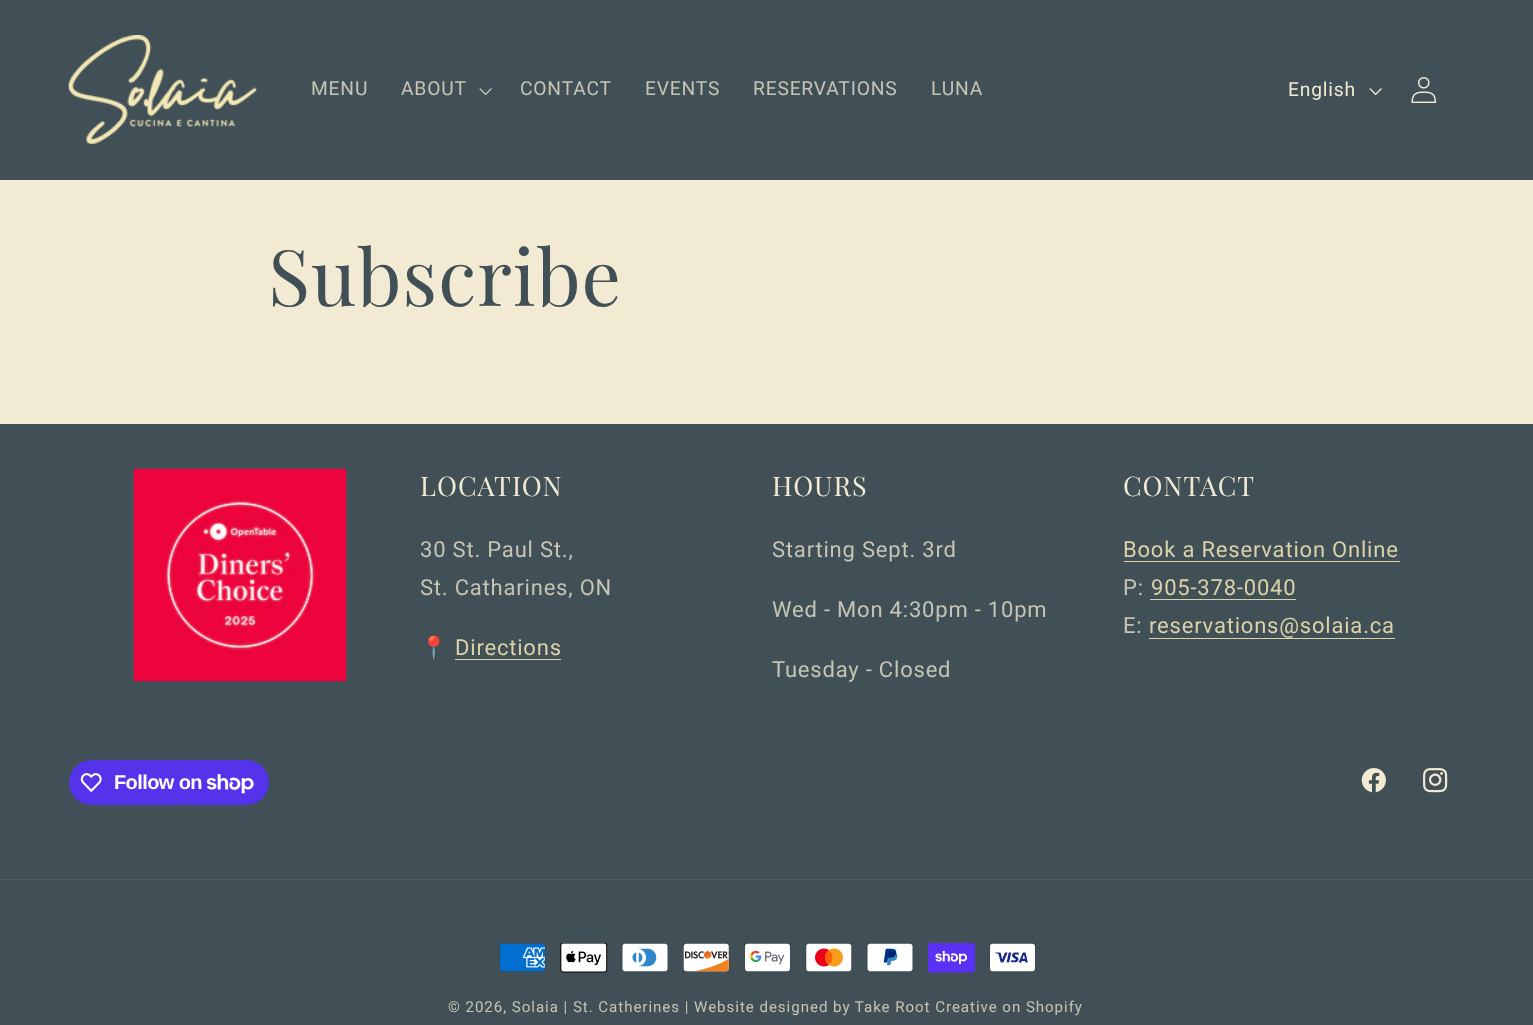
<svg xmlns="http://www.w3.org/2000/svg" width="1533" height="1025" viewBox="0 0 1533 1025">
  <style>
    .t1 { font: 19.25px Roboto; letter-spacing: 0.8px; fill: #c6c4b4; }
    .t2 { font: 19.25px Roboto; letter-spacing: 0.8px; fill: #f2ead3; }
    .t3 { font: 78px Playfair Display; letter-spacing: 1px; fill: #415056; }
    .t4 { font: 27px Playfair Display; letter-spacing: 1px; fill: #f2ead3; }
    .t5 { font: 22px Roboto; letter-spacing: 0.8px; fill: #c6c4b4; }
    .t6 { font: 22px Noto Color Emoji; letter-spacing: 0.8px; fill: #c6c4b4; }
    .t7 { font: 22px Roboto; letter-spacing: 0.8px; fill: #dbd2a8; }
    .t8 { font: bold 20px Liberation Sans; letter-spacing: -0.6px; fill: #fff; }
    .t9 { font: 15.1px Roboto; letter-spacing: 0.95px; fill: #c6c4b4; }
  </style>
  <rect width="100%" height="100%" fill="#f2ead3"/>
  <rect x="0" y="0" width="1533" height="180" fill="#415056"/>
  <image x="68" y="35" width="189" height="109" href="images/1.png"/>
  <text x="311" y="95" class="t1">MENU</text>
  <text x="401" y="95" class="t1">ABOUT</text>
  <image x="479" y="88" width="13" height="7" href="images/2.png"/>
  <text x="520" y="95" class="t1">CONTACT</text>
  <text x="645" y="95" class="t1">EVENTS</text>
  <text x="753" y="95" class="t1">RESERVATIONS</text>
  <text x="931" y="95" class="t1">LUNA</text>
  <text x="1288" y="96" class="t2">English</text>
  <image x="1369" y="88" width="13" height="7" href="images/3.png"/>
  <image x="1411" y="77" width="26" height="26" href="images/4.png"/>
  <text x="268" y="306" class="t3">Subscribe</text>
  <rect x="0" y="424" width="1533" height="601" fill="#415056"/>
  <image x="133" y="468" width="214" height="214" href="images/5.png"/>
  <text x="420" y="496" class="t4">LOCATION</text>
  <text x="420" y="557" class="t5">30 St. Paul St.,</text>
  <text x="420" y="595" class="t5">St. Catharines, ON</text>
  <text x="420" y="655" class="t6">📍</text>
  <text x="455" y="655" class="t7">Directions</text>
  <rect x="455" y="659" width="106" height="1" fill="#dbd2a8"/>
  <text x="772" y="496" class="t4">HOURS</text>
  <text x="772" y="557" class="t5">Starting Sept. 3rd</text>
  <text x="772" y="617" class="t5">Wed - Mon 4:30pm - 10pm</text>
  <text x="772" y="677" class="t5">Tuesday - Closed</text>
  <text x="1123" y="496" class="t4">CONTACT</text>
  <text x="1123" y="557" class="t7">Book a Reservation Online</text>
  <rect x="1124" y="561" width="276" height="1" fill="#dbd2a8"/>
  <text x="1123" y="595" class="t5">P:</text>
  <text x="1151" y="595" class="t7">905-378-0040</text>
  <rect x="1150" y="599" width="146" height="1" fill="#dbd2a8"/>
  <text x="1123" y="633" class="t5">E:</text>
  <text x="1149" y="633" class="t7">reservations@solaia.ca</text>
  <rect x="1149" y="638" width="246" height="1" fill="#dbd2a8"/>
  <rect x="69" y="760" width="200" height="45" rx="22.5" fill="#5433eb"/>
  <image x="80" y="773" width="22" height="19" href="images/6.png"/>
  <text x="114" y="789" class="t8">Follow on</text>
  <image x="206" y="774" width="48" height="20" href="images/7.png"/>
  <image x="1361" y="768" width="25" height="25" href="images/8.png"/>
  <image x="1423" y="768" width="25" height="25" href="images/9.png"/>
  <rect x="0" y="879" width="1533" height="1" fill="#4f5c60"/>
  <image x="499" y="943" width="47" height="29" href="images/10.png"/>
  <image x="560" y="943" width="48" height="30" href="images/11.png"/>
  <image x="621" y="943" width="48" height="29" href="images/12.png"/>
  <image x="683" y="943" width="47" height="29" href="images/13.png"/>
  <image x="744" y="943" width="47" height="29" href="images/14.png"/>
  <image x="805" y="943" width="47" height="29" href="images/15.png"/>
  <image x="866" y="943" width="48" height="29" href="images/16.png"/>
  <image x="928" y="943" width="47" height="30" href="images/17.png"/>
  <image x="989" y="943" width="47" height="29" href="images/18.png"/>
  <text x="448" y="1012" class="t9">© 2026, Solaia | St. Catherines | Website designed by Take Root Creative on Shopify</text>
</svg>
